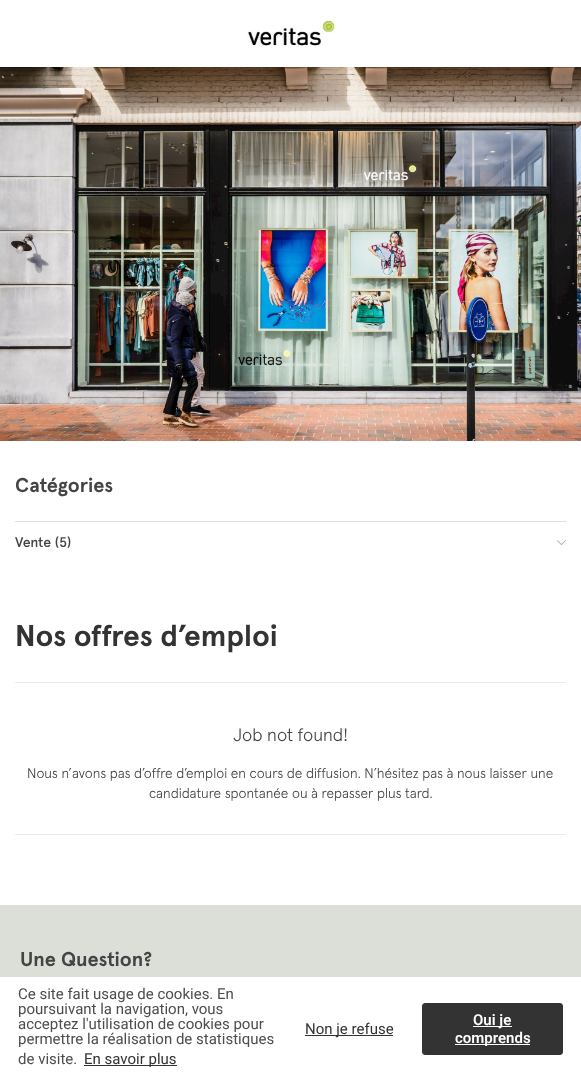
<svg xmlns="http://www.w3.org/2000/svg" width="581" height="1081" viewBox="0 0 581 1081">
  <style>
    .t1 { font: bold 20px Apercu; fill: #444; }
    .t2 { font: 500 14px Apercu; fill: #444; }
    .t3 { font: bold 30px Apercu; fill: #333; }
    .t4 { font: 300 18px Apercu; fill: #444; }
    .t5 { font: 300 14px Apercu; fill: #444; }
    .t6 { font: 15px Roboto; fill: #4d4d4d; }
    .t7 { font: 15px Roboto; fill: #333; }
    .t8 { font: 600 15px Roboto; fill: #fff; }
  </style>
  <rect width="100%" height="100%" fill="#fff"/>
  <image x="247" y="20" width="88" height="27" href="images/1.png"/>
  <image x="0" y="67" width="581" height="374" href="images/2.png"/>
  <text x="15" y="492" class="t1">Catégories</text>
  <rect x="15" y="521" width="551" height="1" fill="#dbdfd8"/>
  <text x="15" y="547" class="t2">Vente (5)</text>
  <image x="557" y="540" width="9" height="5" href="images/3.png"/>
  <text x="15" y="646" class="t3">Nos offres d’emploi</text>
  <rect x="15" y="682" width="551" height="1" fill="#ebece9"/>
  <rect x="15" y="834" width="551" height="1" fill="#ebece9"/>
  <text x="233" y="741" class="t4">Job not found!</text>
  <text x="27" y="778" class="t5">Nous n’avons pas d’offre d’emploi en cours de diffusion. N’hésitez pas à nous laisser une</text>
  <text x="149" y="798" class="t5">candidature spontanée ou à repasser plus tard.</text>
  <rect x="0" y="905" width="581" height="72" fill="#dbdfd8"/>
  <text x="20" y="966" class="t1">Une Question?</text>
  <text x="18" y="999" class="t6">Ce site fait usage de cookies. En</text>
  <text x="18" y="1014" class="t6">poursuivant la navigation, vous</text>
  <text x="18" y="1029" class="t6">acceptez l'utilisation de cookies pour</text>
  <text x="18" y="1044" class="t6">permettre la réalisation de statistiques</text>
  <text x="18" y="1064" class="t6">de visite.</text>
  <rect x="84" y="1065" width="93" height="1" fill="#333"/>
  <text x="84" y="1064" class="t7">En savoir plus</text>
  <rect x="305" y="1035" width="88" height="1" fill="#333"/>
  <text x="305" y="1034" class="t7">Non je refuse</text>
  <rect x="422.5" y="1003.5" width="140" height="51" rx="2.5" fill="#333" stroke="#333"/>
  <rect x="473" y="1026" width="39" height="1" fill="#fff"/>
  <text x="473" y="1025" class="t8">Oui je</text>
  <rect x="455" y="1044" width="75" height="1" fill="#fff"/>
  <text x="455" y="1043" class="t8">comprends</text>
</svg>
